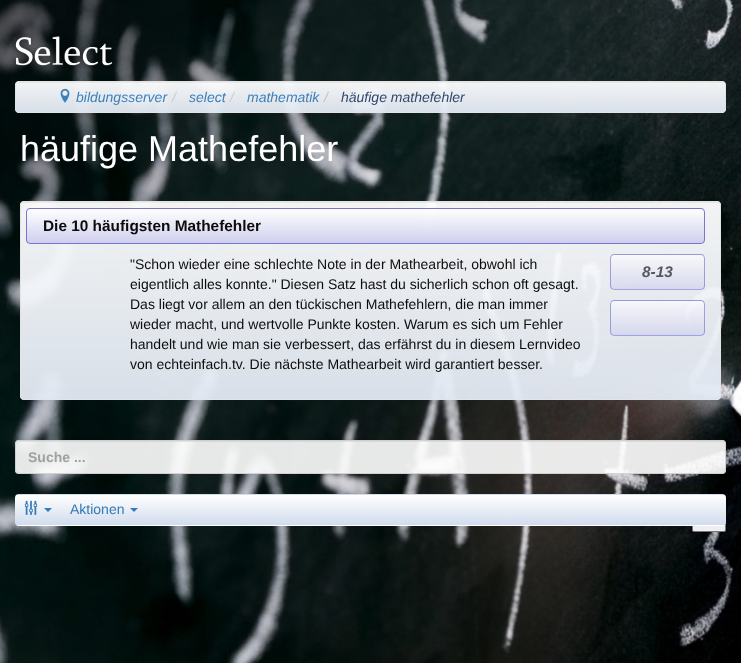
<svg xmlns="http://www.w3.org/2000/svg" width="741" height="663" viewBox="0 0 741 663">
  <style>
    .t1 { font: italic 14px Liberation Sans; fill: #3c80ba; }
    .t2 { font: italic 14px Liberation Sans; fill: #cdcdce; }
    .t3 { font: italic 14px Liberation Sans; fill: #c3c3c3; }
    .t4 { font: italic 14px Liberation Sans; fill: #31486c; }
    .t5 { font: 36px Liberation Sans; fill: #fff; }
    .t6 { font: bold 15.4px Liberation Sans; fill: #0c0c0c; }
    .t7 { font: 14px Liberation Sans; fill: #0c0c0c; }
    .t8 { font: italic bold 15.4px Liberation Sans; fill: #59595d; }
    .t9 { font: bold 14px Liberation Sans; fill: #a1a1a1; }
    .t10 { font: 14px Liberation Sans; fill: #337ab7; }
  </style>
  <defs>
    <clipPath id="clip1"><rect x="610" y="254" width="95" height="36" rx="4"/></clipPath>
    <linearGradient id="g1" gradientUnits="userSpaceOnUse" x1="611" y1="255" x2="611" y2="221"><stop offset="0" stop-color="#d9daef"/><stop offset="1" stop-color="#f8f9f9"/></linearGradient>
    <linearGradient id="g2" gradientUnits="userSpaceOnUse" x1="611" y1="323" x2="611" y2="289"><stop offset="0" stop-color="#d7d9ee"/><stop offset="1" stop-color="#f6f7f9"/></linearGradient>
    <clipPath id="clip2"><rect x="610" y="300" width="95" height="36" rx="4"/></clipPath>
    <linearGradient id="g3" gradientUnits="userSpaceOnUse" x1="611" y1="369" x2="611" y2="335"><stop offset="0" stop-color="#d5d7ed"/><stop offset="1" stop-color="#f4f6f8"/></linearGradient>
    <clipPath id="clip3"><rect x="15" y="494" width="711" height="32" rx="4"/></clipPath>
    <linearGradient id="g4" gradientUnits="userSpaceOnUse" x1="16" y1="495" x2="16" y2="465"><stop offset="0" stop-color="#d1dced"/><stop offset="1" stop-color="#fff"/></linearGradient>
    <linearGradient id="g5" gradientUnits="userSpaceOnUse" x1="16" y1="525" x2="16" y2="495"><stop offset="0" stop-color="#d1dced"/><stop offset="1" stop-color="#fff"/></linearGradient>
    <linearGradient id="g6" gradientUnits="userSpaceOnUse" x1="16" y1="555" x2="16" y2="525"><stop offset="0" stop-color="#d1dced"/><stop offset="1" stop-color="#fff"/></linearGradient>
  </defs>
  <rect width="100%" height="100%" fill="#fff"/>
  <image x="0" y="0" width="741" height="663" href="images/1.png"/>
  <image x="11" y="33" width="102" height="36" href="images/2.png"/>
  <path d="M19 83H722C724 83 725 84 725 86C725 84 724 82 722 82H19C17 82 16 84 16 86C16 84 17 83 19 83Z" fill="#0000000d"/>
  <rect x="15.5" y="81.5" width="710" height="31" rx="3.5" fill="none" stroke="#e3e3e3f2"/>
  <image x="60" y="88" width="10" height="15" href="images/3.png"/>
  <text x="76" y="102" class="t1">bildungsserver</text>
  <text x="172" y="102" class="t2">/</text>
  <text x="189" y="102" class="t1">select</text>
  <text x="230" y="102" class="t2">/</text>
  <text x="247" y="102" class="t1">mathematik</text>
  <text x="324" y="102" class="t3">/</text>
  <text x="341" y="102" class="t4">häufige mathefehler</text>
  <text x="20" y="161" class="t5">häufige Mathefehler</text>
  <path d="M24 203H717C719 203 720 204 720 206C720 204 719 202 717 202H24C22 202 21 204 21 206C21 204 22 203 24 203Z" fill="#0000000d"/>
  <rect x="20.5" y="201.5" width="700" height="198" rx="3.5" fill="none" stroke="#e3e3e3f2"/>
  <rect x="26.5" y="208.5" width="678" height="35" rx="3.5" fill="none" stroke="#706fcef2"/>
  <text x="43" y="231" class="t6">Die 10 häufigsten Mathefehler</text>
  <text x="130" y="269" class="t7">"Schon wieder eine schlechte Note in der Mathearbeit, obwohl ich</text>
  <text x="130" y="289" class="t7">eigentlich alles konnte." Diesen Satz hast du sicherlich schon oft gesagt.</text>
  <text x="130" y="309" class="t7">Das liegt vor allem an den tückischen Mathefehlern, die man immer</text>
  <text x="130" y="329" class="t7">wieder macht, und wertvolle Punkte kosten. Warum es sich um Fehler</text>
  <text x="130" y="349" class="t7">handelt und wie man sie verbessert, das erfährst du in diesem Lernvideo</text>
  <text x="130" y="369" class="t7">von echteinfach.tv. Die nächste Mathearbeit wird garantiert besser.</text>
  <g clip-path="url(#clip1)">
    <rect x="610" y="254" width="95" height="1" fill="url(#g1)"/>
    <rect x="610" y="289" width="95" height="1" fill="url(#g2)"/>
  </g>
  <rect x="610.5" y="254.5" width="94" height="35" rx="3.5" fill="none" stroke="#706fce9e"/>
  <text x="642" y="277" class="t8">8-13</text>
  <g clip-path="url(#clip2)">
    <rect x="610" y="335" width="95" height="1" fill="url(#g3)"/>
  </g>
  <rect x="610.5" y="300.5" width="94" height="35" rx="3.5" fill="none" stroke="#706fce9e"/>
  <rect x="15" y="440" width="711" height="34" rx="4" fill="#ffffffe6"/>
  <path d="M19 442H722C724 442 725 443 725 445C725 443 724 441 722 441H19C17 441 16 443 16 445C16 443 17 442 19 442Z" fill="#00000012"/>
  <rect x="15.5" y="440.5" width="710" height="33" rx="3.5" fill="none" stroke="#cccccce6"/>
  <text x="28" y="462" class="t9">Suche ...</text>
  <g clip-path="url(#clip3)">
    <rect x="15" y="494" width="711" height="1" fill="url(#g4)"/>
  </g>
  <rect x="692.5" y="498.5" width="33" height="33" rx="1.5" fill="#efefef" stroke="#767676"/>
  <g clip-path="url(#clip3)">
    <rect x="15" y="495" width="711" height="30" fill="url(#g5)"/>
    <rect x="15" y="525" width="711" height="1" fill="url(#g6)"/>
  </g>
  <image x="24" y="500" width="14" height="15" href="images/4.png"/>
  <path d="M44 508H52L48 512Z" fill="#337ab7"/>
  <text x="70" y="514" class="t10">Aktionen</text>
  <path d="M130 508H138L134 512Z" fill="#337ab7"/>
</svg>
